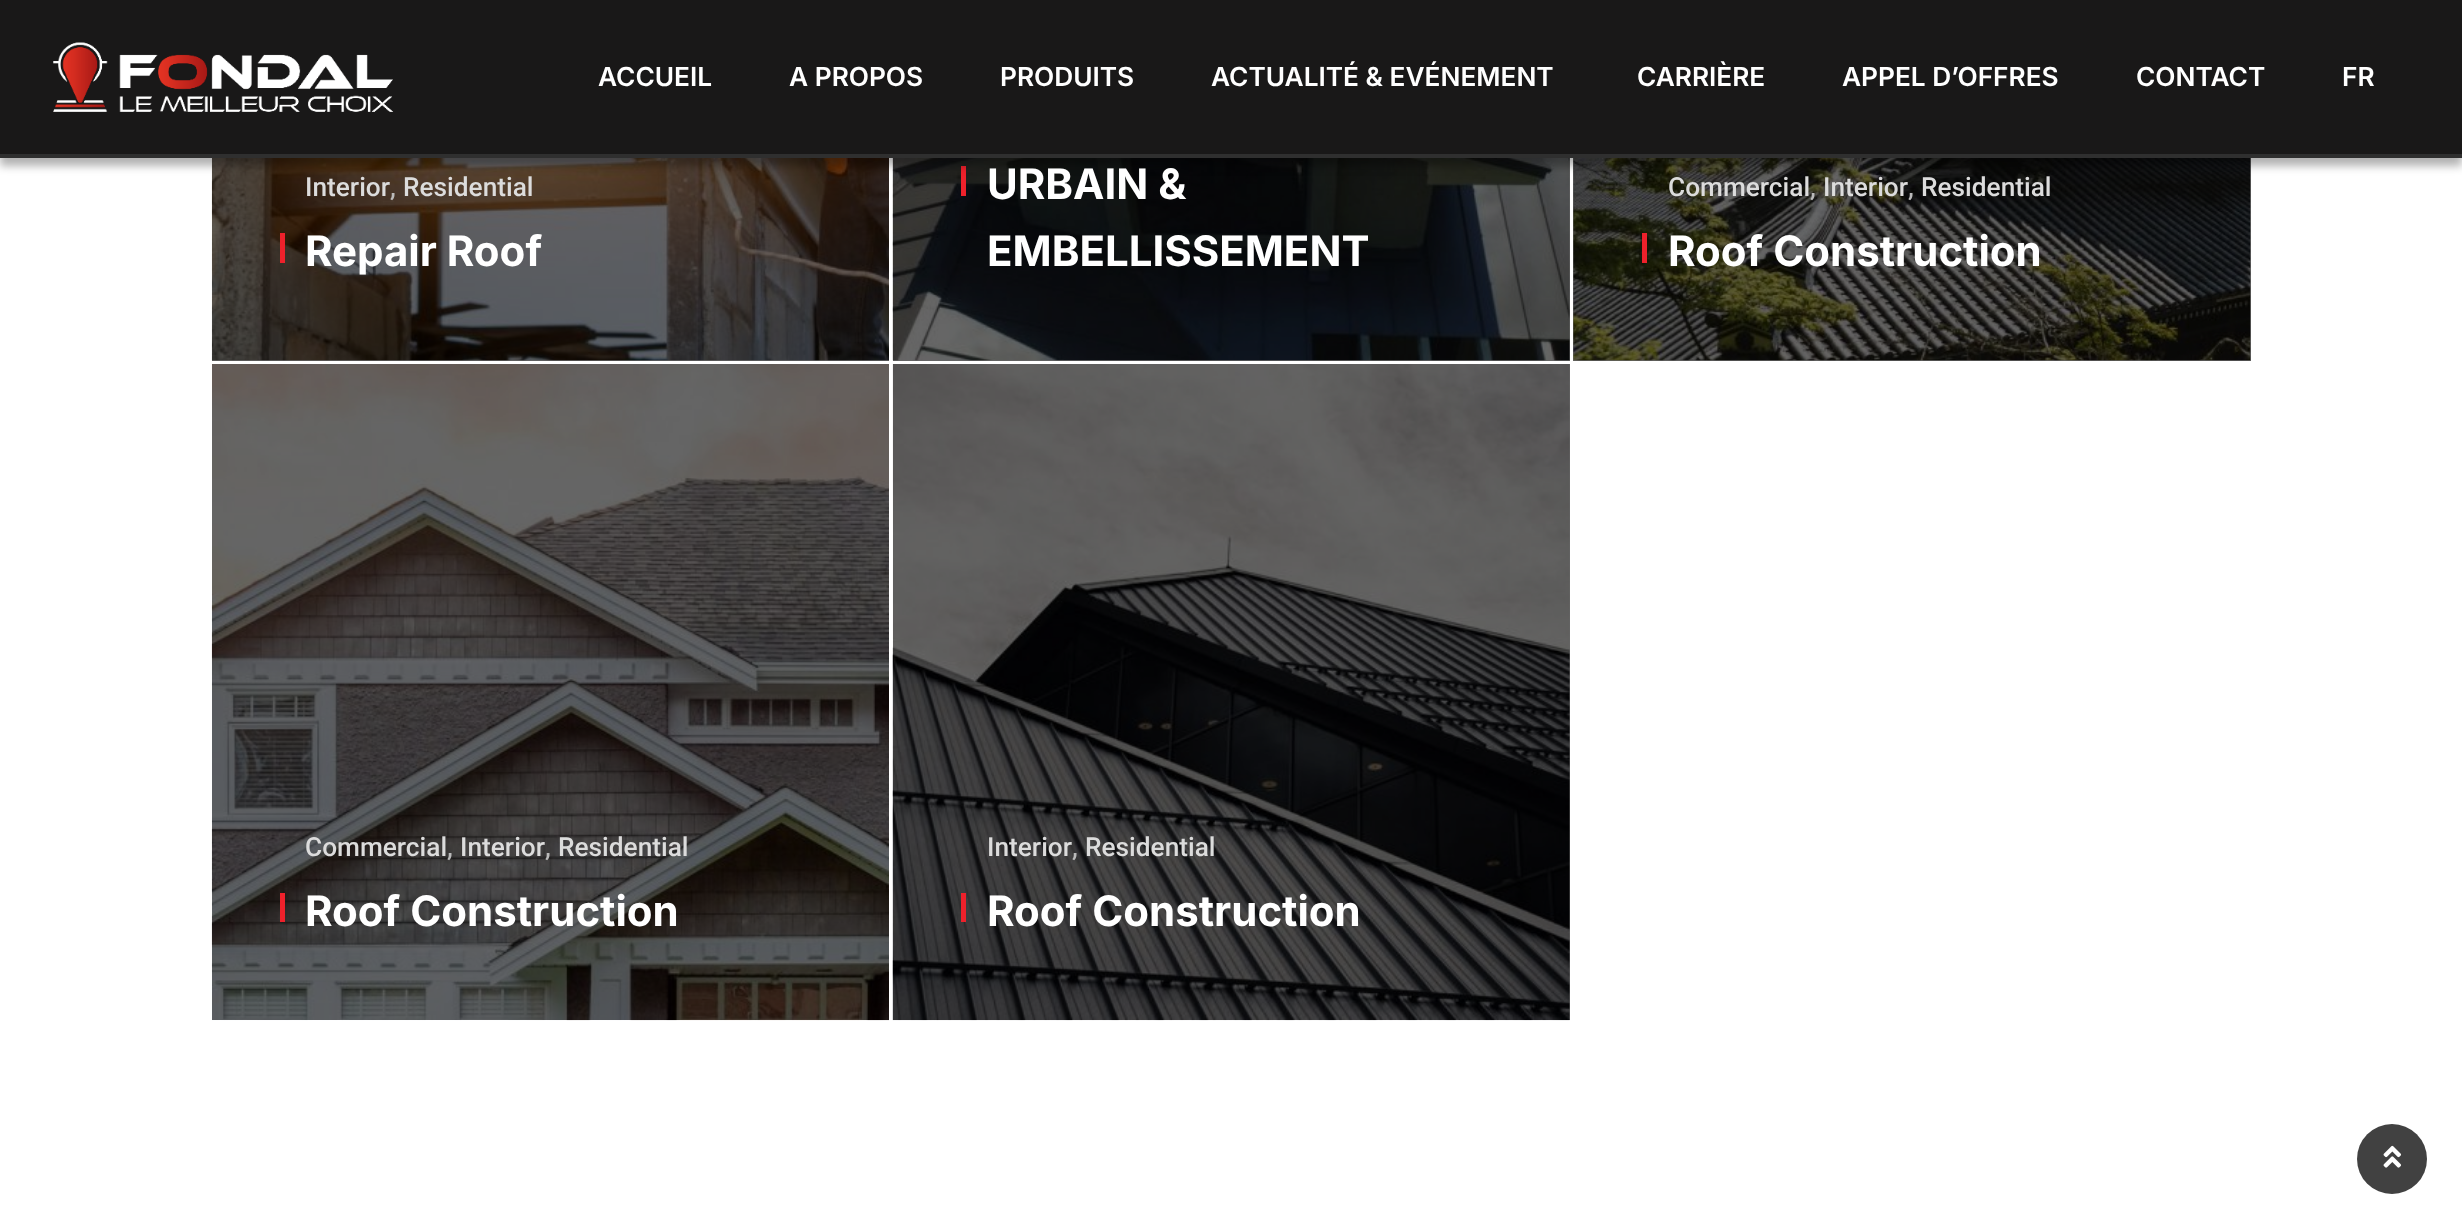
<svg xmlns="http://www.w3.org/2000/svg" width="2462" height="1228" viewBox="0 0 2462 1228">
  <style>
    .t1 { font: 600 26.25px Inter; fill: #fff; }
    .t2 { font: 500 26.25px Roboto; fill: #dcdcdc; }
    .t3 { font: 500 26.25px Roboto; fill: #bababa; }
    .t4 { font: bold 42px Inter; fill: #fff; }
  </style>
  <rect width="100%" height="100%" fill="#fff"/>
  <rect x="1569" y="364" width="1" height="656" fill="#666"/>
  <rect x="1573" y="158" width="678" height="203" fill="#666"/>
  <rect x="893" y="158" width="677" height="203" fill="#666"/>
  <rect x="212" y="360" width="677" height="1" fill="#666"/>
  <image x="211" y="158" width="678" height="203" href="images/2.png"/>
  <image x="892" y="158" width="678" height="203" href="images/3.png"/>
  <rect x="961" y="166" width="5" height="30" fill="#ee212b"/>
  <image x="1573" y="158" width="678" height="203" href="images/4.png"/>
  <rect x="0" y="9" width="2462" height="157" fill="#0000004d" filter="blur(4.5px)"/>
  <rect x="0" y="0" width="2462" height="154" fill="#191818"/>
  <rect x="0" y="154" width="2462" height="4" fill="#2f2f2f"/>
  <image x="53" y="42" width="341" height="70" href="images/1.png"/>
  <text x="598" y="86" class="t1">ACCUEIL</text>
  <text x="789" y="86" class="t1">A PROPOS</text>
  <text x="1000" y="86" class="t1">PRODUITS</text>
  <text x="1211" y="86" class="t1">ACTUALITÉ &amp; EVÉNEMENT</text>
  <text x="1637" y="86" class="t1">CARRIÈRE</text>
  <text x="1842" y="86" class="t1">APPEL D’OFFRES</text>
  <text x="2136" y="86" class="t1">CONTACT</text>
  <text x="2342" y="86" class="t1">FR</text>
  <text x="305" y="196" class="t2">Interior</text>
  <text x="390" y="196" class="t3">,</text>
  <text x="403" y="196" class="t2">Residential</text>
  <rect x="280" y="233" width="5" height="30" fill="#ee212b"/>
  <text x="305" y="266" class="t4">Repair Roof</text>
  <text x="987" y="199" class="t4">URBAIN &amp;</text>
  <text x="987" y="266" class="t4">EMBELLISSEMENT</text>
  <text x="1668" y="196" class="t2">Commercial</text>
  <text x="1810" y="196" class="t3">,</text>
  <text x="1823" y="196" class="t2">Interior</text>
  <text x="1908" y="196" class="t3">,</text>
  <text x="1921" y="196" class="t2">Residential</text>
  <rect x="1642" y="233" width="5" height="30" fill="#ee212b"/>
  <text x="1668" y="266" class="t4">Roof Construction</text>
  <image x="211" y="364" width="678" height="657" href="images/5.png"/>
  <text x="305" y="856" class="t2">Commercial</text>
  <text x="447" y="856" class="t3">,</text>
  <text x="460" y="856" class="t2">Interior</text>
  <text x="545" y="856" class="t3">,</text>
  <text x="558" y="856" class="t2">Residential</text>
  <rect x="280" y="893" width="5" height="29" fill="#ee212b"/>
  <text x="305" y="926" class="t4">Roof Construction</text>
  <image x="892" y="364" width="678" height="657" href="images/6.png"/>
  <text x="987" y="856" class="t2">Interior</text>
  <text x="1072" y="856" class="t3">,</text>
  <text x="1085" y="856" class="t2">Residential</text>
  <rect x="961" y="893" width="5" height="29" fill="#ee212b"/>
  <text x="987" y="926" class="t4">Roof Construction</text>
  <circle cx="2392" cy="1159" r="35" fill="#414141"/>
  <image x="2383" y="1145" width="18" height="23" href="images/7.png"/>
</svg>
